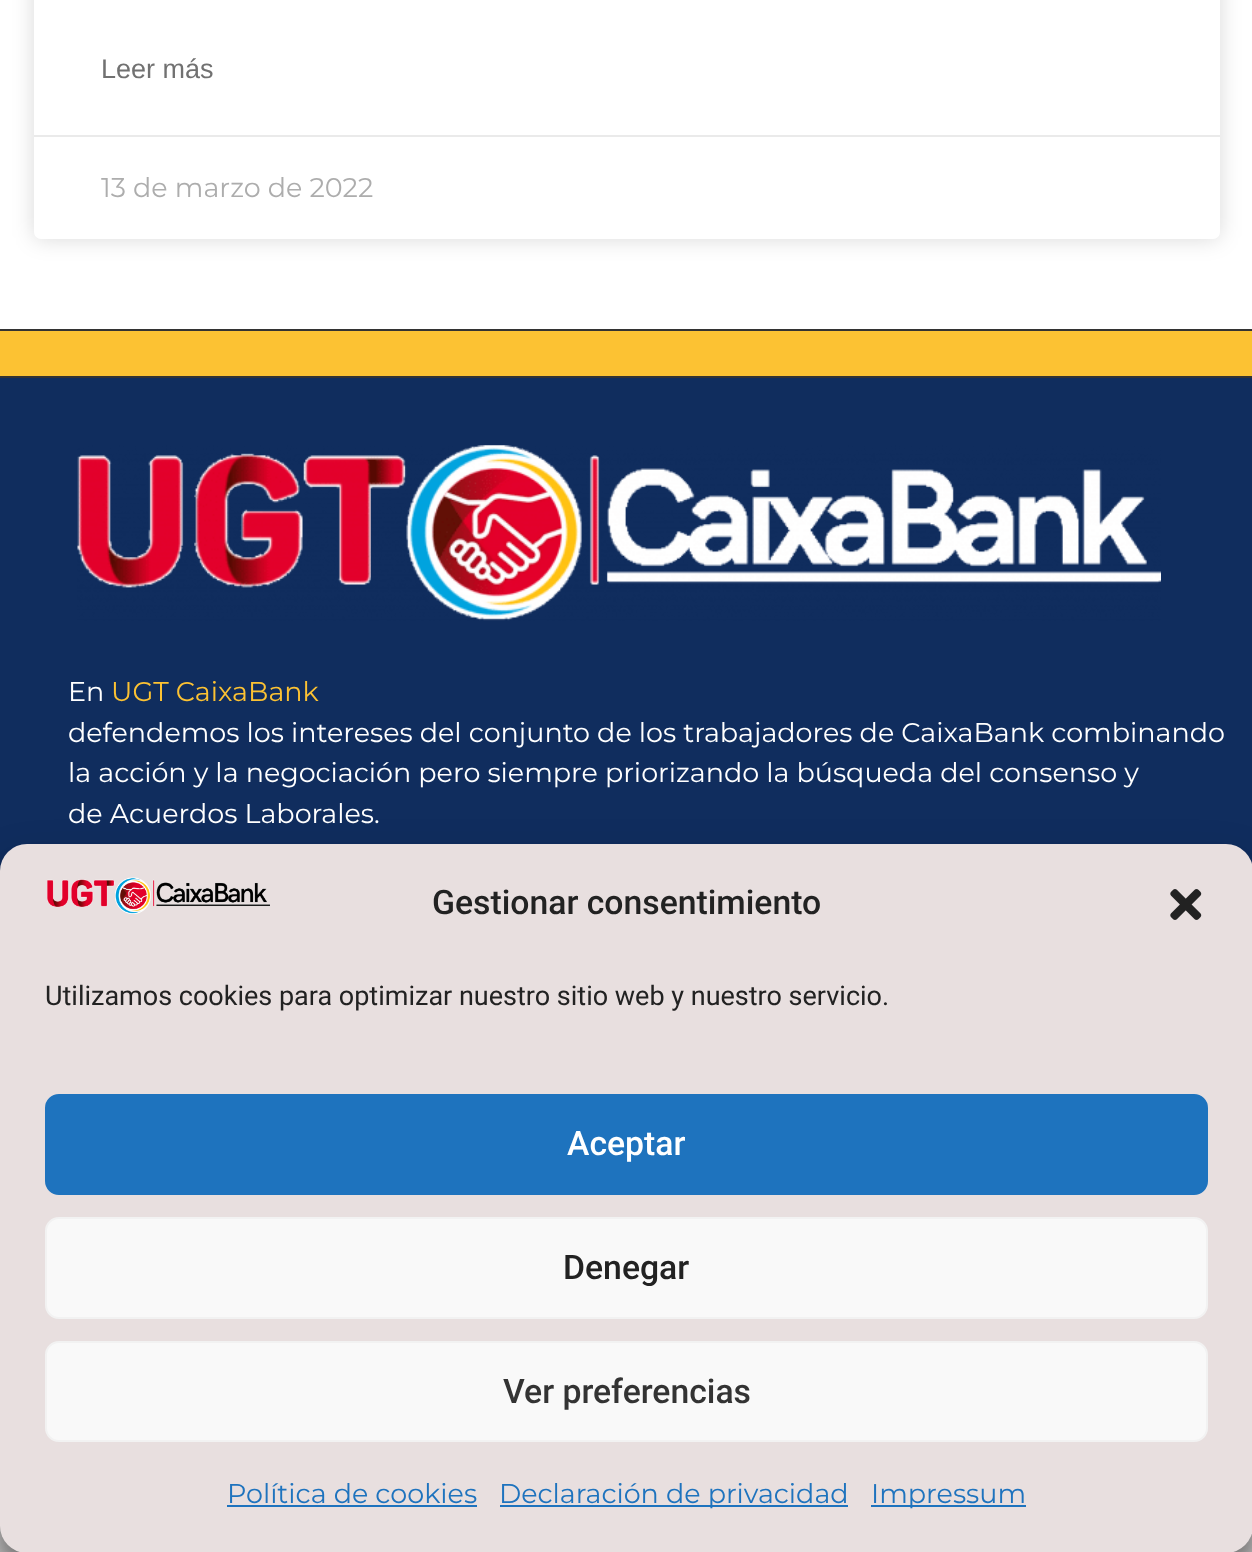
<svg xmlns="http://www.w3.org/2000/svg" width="1252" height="1552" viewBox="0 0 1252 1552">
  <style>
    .t1 { font: 27px Liberation Sans; fill: #717171; }
    .t2 { font: 27px Montserrat; fill: #adadad; }
    .t3 { font: 27px Montserrat; fill: #fff; }
    .t4 { font: 27px Montserrat; fill: #fcc233; }
    .t5 { font: 500 33.75px Roboto; fill: #222; }
    .t6 { font: 27px Roboto; fill: #222; }
    .t7 { font: 500 33.75px Roboto; fill: #fff; }
    .t8 { font: 500 33.75px Roboto; fill: #333; }
    .t9 { font: 27px Montserrat; fill: #1e73be; }
  </style>
  <rect width="100%" height="100%" fill="#fff"/>
  <rect x="34" y="-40" width="1186" height="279" rx="7" fill="#00000026" filter="blur(11px)"/>
  <rect x="34" y="-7" width="1186" height="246" rx="7" fill="#fff"/>
  <text x="101" y="78" class="t1">Leer más</text>
  <rect x="34" y="135" width="1186" height="2" fill="#eaeaea"/>
  <text x="101" y="197" class="t2">13 de marzo de 2022</text>
  <rect x="0" y="331" width="1252" height="45" fill="#fcc233"/>
  <rect x="0" y="329" width="1252" height="2" fill="#333"/>
  <rect x="0" y="376" width="1252" height="2" fill="#333"/>
  <rect x="0" y="378" width="1252" height="493" fill="#102d5e"/>
  <image x="77" y="445" width="1084" height="176" href="images/1.png"/>
  <text x="68" y="701" class="t3">En</text>
  <text x="111" y="701" class="t4">UGT CaixaBank</text>
  <text x="68" y="742" class="t3">defendemos los intereses del conjunto de los trabajadores de CaixaBank combinando</text>
  <text x="68" y="782" class="t3">la acción y la negociación pero siempre priorizando la búsqueda del consenso y</text>
  <text x="68" y="823" class="t3">de Acuerdos Laborales.</text>
  <rect x="0" y="1526" width="1252" height="26" fill="#c0bebe"/>
  <rect x="0" y="857" width="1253" height="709" rx="27" fill="#0000003b" filter="blur(7px)"/>
  <rect x="0" y="866" width="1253" height="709" rx="27" fill="#00000030" filter="blur(22.5px)"/>
  <rect x="0" y="844" width="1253" height="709" rx="27" fill="#e8dfdf"/>
  <image x="47" y="877" width="223" height="37" href="images/2.png"/>
  <text x="432" y="914" class="t5">Gestionar consentimiento</text>
  <image x="1170" y="889" width="32" height="31" href="images/3.png"/>
  <text x="45" y="1005" class="t6">Utilizamos cookies para optimizar nuestro sitio web y nuestro servicio.</text>
  <rect x="46" y="1095" width="1161" height="99" rx="13" fill="#1e73be" stroke="#1e73be" stroke-width="2"/>
  <text x="567" y="1155" class="t7">Aceptar</text>
  <rect x="46" y="1218" width="1161" height="100" rx="13" fill="#f9f9f9" stroke="#f2f2f2" stroke-width="2"/>
  <text x="563" y="1279" class="t5">Denegar</text>
  <rect x="46" y="1342" width="1161" height="99" rx="13" fill="#f9f9f9" stroke="#f2f2f2" stroke-width="2"/>
  <text x="503" y="1403" class="t8">Ver preferencias</text>
  <text x="227" y="1503" class="t9">Política de cookies</text>
  <rect x="227" y="1505" width="250" height="2" fill="#1e73be"/>
  <rect x="500" y="1505" width="348" height="2" fill="#1e73be"/>
  <text x="499" y="1503" class="t9">Declaración de privacidad</text>
  <rect x="871" y="1505" width="155" height="2" fill="#1e73be"/>
  <text x="871" y="1503" class="t9">Impressum</text>
</svg>
